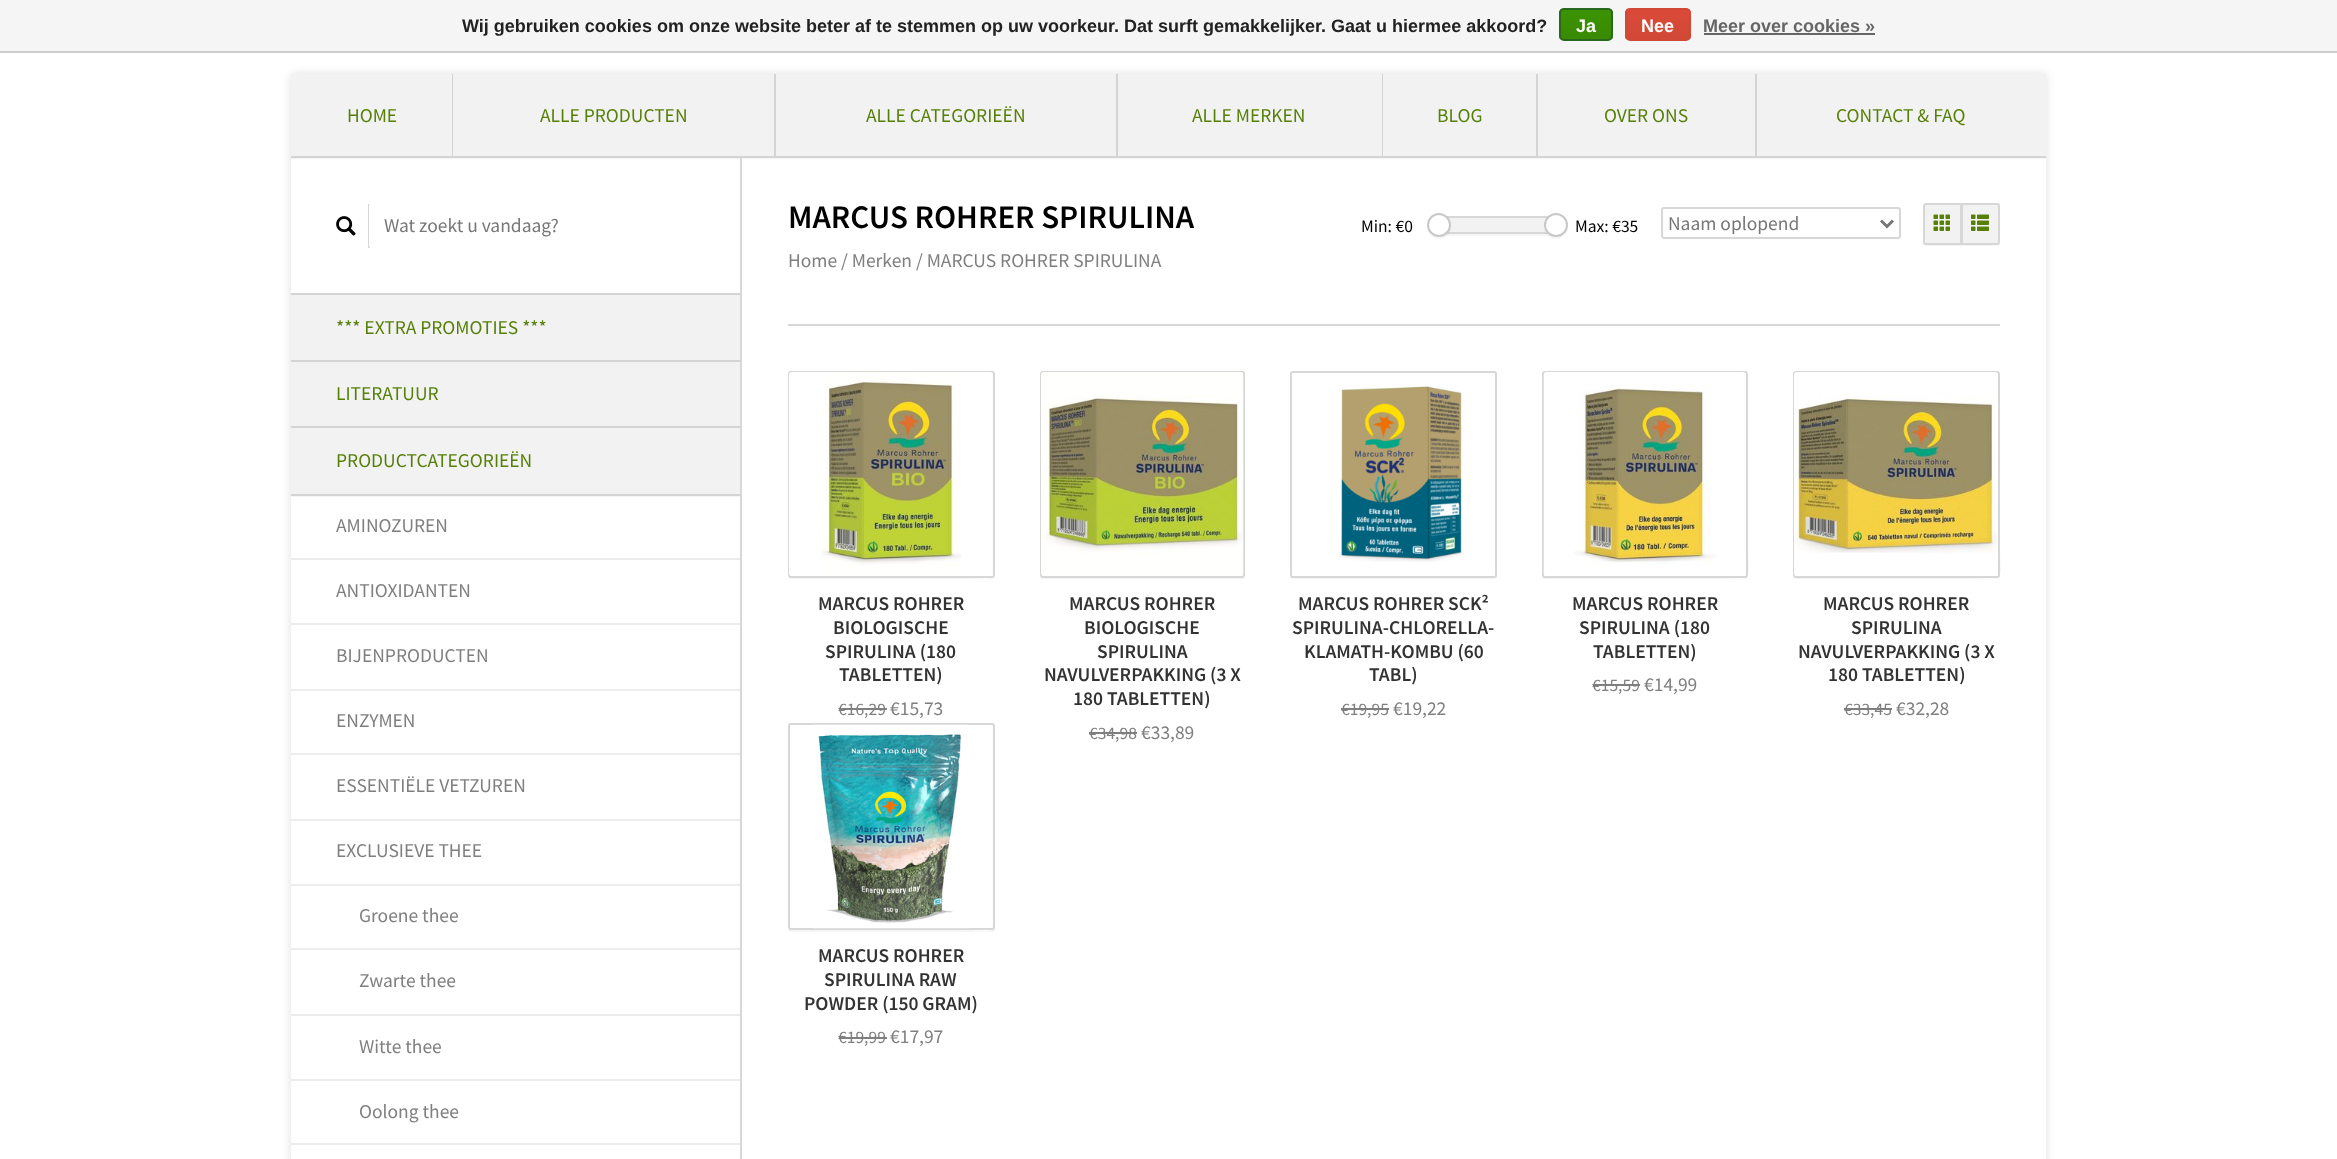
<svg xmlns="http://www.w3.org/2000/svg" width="2337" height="1159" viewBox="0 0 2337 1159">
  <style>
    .t1 { font: bold 18px Liberation Sans; fill: #222; }
    .t2 { font: bold 18px Liberation Sans; fill: #fff; }
    .t3 { font: bold 18px Liberation Sans; fill: #666; }
    .t4 { font: 19.5px Source Sans Pro; fill: #568008; }
    .t5 { font: 19.5px Source Sans Pro; fill: #777; }
    .t6 { font: 19.5px Source Sans Pro; fill: #7f7f7f; }
    .t7 { font: 600 32.9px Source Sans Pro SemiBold; fill: #000; }
    .t8 { font: 17.5px Source Sans Pro; fill: #000; }
    .t9 { font: 600 19.5px Source Sans Pro SemiBold; fill: #333; }
    .t10 { font: 17.5px Source Sans Pro; fill: #7f7f7f; }
  </style>
  <defs>
    <clipPath id="clip1"><rect x="1559" y="8" width="54" height="33" rx="5"/></clipPath>
    <linearGradient id="g1" gradientUnits="userSpaceOnUse" x1="1586" y1="9" x2="1586" y2="39"><stop offset="0" stop-color="#3c9300"/><stop offset="1" stop-color="#398a00"/></linearGradient>
    <clipPath id="clip2"><rect x="1625" y="8" width="66" height="33" rx="5"/></clipPath>
    <linearGradient id="g2" gradientUnits="userSpaceOnUse" x1="1658" y1="9" x2="1658" y2="39"><stop offset="0" stop-color="#dc4a38"/><stop offset="1" stop-color="#d14836"/></linearGradient>
    <clipPath id="clip3"><path d="M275 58H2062V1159H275ZM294 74H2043C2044.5 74 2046 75.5 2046 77V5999C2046 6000.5 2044.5 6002 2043 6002H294C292.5 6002 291 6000.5 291 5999V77C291 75.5 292.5 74 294 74Z" clip-rule="evenodd"/></clipPath>
  </defs>
  <rect width="100%" height="100%" fill="#fff"/>
  <rect x="0" y="0" width="2337" height="51" fill="#f5f5f5"/>
  <rect x="0" y="51" width="2337" height="2" fill="#ccc"/>
  <text x="462" y="32" class="t1">Wij gebruiken cookies om onze website beter af te stemmen op uw voorkeur. Dat surft gemakkelijker. Gaat u hiermee akkoord?</text>
  <g clip-path="url(#clip1)">
    <rect x="1559" y="9" width="54" height="30" fill="url(#g1)"/>
  </g>
  <rect x="1560" y="9" width="52" height="31" rx="4" fill="none" stroke="#29691d" stroke-width="2"/>
  <text x="1576" y="32" class="t2">Ja</text>
  <g clip-path="url(#clip2)">
    <rect x="1625" y="9" width="66" height="30" fill="url(#g2)"/>
  </g>
  <rect x="1626" y="9" width="64" height="31" rx="4" fill="none" stroke="#d14836" stroke-width="2"/>
  <text x="1641" y="32" class="t2">Nee</text>
  <text x="1703" y="32" class="t3">Meer over cookies »</text>
  <rect x="1704" y="33" width="171" height="2" fill="#666"/>
  <g clip-path="url(#clip3)">
    <rect x="291" y="74" width="1755" height="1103" rx="3" fill="#00000021" filter="blur(5px)"/>
  </g>
  <rect x="291" y="158" width="1755" height="1" fill="#f5f5f5"/>
  <rect x="291" y="156" width="1755" height="2" fill="#d4d4d4"/>
  <rect x="291" y="74" width="161" height="82" fill="#f2f2f2"/>
  <rect x="452" y="74" width="1" height="82" fill="#d4d4d4"/>
  <text x="347" y="122" class="t4">HOME</text>
  <rect x="453" y="74" width="321" height="82" fill="#f2f2f2"/>
  <rect x="774" y="74" width="2" height="82" fill="#d4d4d4"/>
  <text x="540" y="122" class="t4">ALLE PRODUCTEN</text>
  <rect x="776" y="74" width="340" height="82" fill="#f2f2f2"/>
  <rect x="1116" y="74" width="2" height="82" fill="#d4d4d4"/>
  <text x="866" y="122" class="t4">ALLE CATEGORIEËN</text>
  <rect x="1118" y="74" width="264" height="82" fill="#f2f2f2"/>
  <rect x="1382" y="74" width="1" height="82" fill="#d4d4d4"/>
  <text x="1192" y="122" class="t4">ALLE MERKEN</text>
  <rect x="1383" y="74" width="153" height="82" fill="#f2f2f2"/>
  <rect x="1536" y="74" width="2" height="82" fill="#d4d4d4"/>
  <text x="1437" y="122" class="t4">BLOG</text>
  <rect x="1538" y="74" width="217" height="82" fill="#f2f2f2"/>
  <rect x="1755" y="74" width="2" height="82" fill="#d4d4d4"/>
  <text x="1604" y="122" class="t4">OVER ONS</text>
  <rect x="1757" y="74" width="289" height="82" fill="#f2f2f2"/>
  <text x="1836" y="122" class="t4">CONTACT &amp; FAQ</text>
  <rect x="740" y="158" width="2" height="1001" fill="#d7d7d7"/>
  <rect x="368" y="204" width="2" height="44" fill="#d7d7d7"/>
  <image x="336" y="216" width="20" height="20" href="images/1.png"/>
  <rect x="369" y="203" width="240" height="45" rx="3" fill="#fff"/>
  <text x="384" y="232" class="t5">Wat zoekt u vandaag?</text>
  <rect x="291" y="295" width="449" height="65" fill="#f2f2f2"/>
  <rect x="291" y="293" width="449" height="2" fill="#d4d4d4"/>
  <text x="336" y="334" class="t4">*** EXTRA PROMOTIES ***</text>
  <rect x="291" y="362" width="449" height="64" fill="#f2f2f2"/>
  <rect x="291" y="360" width="449" height="2" fill="#d4d4d4"/>
  <text x="336" y="400" class="t4">LITERATUUR</text>
  <path d="M291 495V497H740V428V495Z" fill="#f5f5f5"/>
  <rect x="291" y="428" width="449" height="66" fill="#f2f2f2"/>
  <rect x="291" y="426" width="449" height="2" fill="#d4d4d4"/>
  <rect x="291" y="494" width="449" height="2" fill="#d4d4d4"/>
  <text x="336" y="467" class="t4">PRODUCTCATEGORIEËN</text>
  <rect x="291" y="558" width="449" height="2" fill="#ececec"/>
  <text x="336" y="532" class="t6">AMINOZUREN</text>
  <rect x="291" y="623" width="449" height="2" fill="#ececec"/>
  <text x="336" y="597" class="t6">ANTIOXIDANTEN</text>
  <rect x="291" y="689" width="449" height="2" fill="#ececec"/>
  <text x="336" y="662" class="t6">BIJENPRODUCTEN</text>
  <rect x="291" y="753" width="449" height="2" fill="#ececec"/>
  <text x="336" y="727" class="t6">ENZYMEN</text>
  <rect x="291" y="819" width="449" height="2" fill="#ececec"/>
  <text x="336" y="792" class="t6">ESSENTIËLE VETZUREN</text>
  <rect x="291" y="884" width="449" height="2" fill="#ececec"/>
  <text x="336" y="857" class="t6">EXCLUSIEVE THEE</text>
  <rect x="291" y="948" width="449" height="2" fill="#ececec"/>
  <text x="359" y="922" class="t6">Groene thee</text>
  <rect x="291" y="1014" width="449" height="2" fill="#ececec"/>
  <text x="359" y="987" class="t6">Zwarte thee</text>
  <rect x="291" y="1079" width="449" height="2" fill="#ececec"/>
  <text x="359" y="1053" class="t6">Witte thee</text>
  <rect x="291" y="1143" width="449" height="2" fill="#ececec"/>
  <text x="359" y="1118" class="t6">Oolong thee</text>
  <text x="788" y="228" class="t7">MARCUS ROHRER SPIRULINA</text>
  <text x="788" y="267" class="t6">Home / Merken / MARCUS ROHRER SPIRULINA</text>
  <text x="1361" y="232" class="t8">Min: €0</text>
  <rect x="1440" y="234" width="117" height="2" fill="#f5f5f5"/>
  <rect x="1448" y="218" width="99" height="14" fill="#f2f2f2"/>
  <rect x="1441" y="217" width="115" height="16" fill="none" stroke="#d7d7d7" stroke-width="2"/>
  <path d="M1427 229C1427.5 231.5 1429 234.5 1431 236C1440.5 244 1454 234.5 1450.5 223C1452.5 237.5 1432 242.5 1427 229Z" fill="#0000000a"/>
  <circle cx="1439" cy="225" r="11" fill="#fff" stroke="#c8c8c8" stroke-width="2"/>
  <path d="M1544 229C1544.5 231.5 1546 234.5 1548 236C1557.5 244 1571 234.5 1567.5 223C1569.5 237.5 1549 242.5 1544 229Z" fill="#0000000a"/>
  <circle cx="1556" cy="225" r="11" fill="#fff" stroke="#c8c8c8" stroke-width="2"/>
  <text x="1575" y="232" class="t8">Max: €35</text>
  <rect x="1662" y="208" width="238" height="30" rx="2" fill="none" stroke="#d7d7d7" stroke-width="2"/>
  <path d="M1881 220.5L1887 226.5L1893 220.5" fill="none" stroke="#777" stroke-width="3"/>
  <text x="1668" y="230" class="t5">Naam oplopend</text>
  <path d="M1923 241.5V243C1923 244.5 1924.5 246 1926 246H1962V244.5H1926C1924.5 244.5 1923 243 1923 241.5Z" fill="#f5f5f5"/>
  <path d="M1926 204H1961V244H1926C1925 244 1924 243 1924 242V206C1924 205 1925 204 1926 204Z" fill="#f2f2f2" stroke="#d7d7d7" stroke-width="2"/>
  <image x="1933" y="214" width="17" height="17" href="images/2.png"/>
  <path d="M1961 244V246H1991C2003 246 2000 245 2000 231C2000 227 2001 208 1999 205L2000 236C2000 248 1998 244 1985 244Z" fill="#0000000a"/>
  <path d="M1962 204H1997C1998 204 1999 205 1999 206V242C1999 243 1998 244 1997 244H1962Z" fill="#f2f2f2" stroke="#d7d7d7" stroke-width="2"/>
  <image x="1971" y="214" width="18" height="17" href="images/3.png"/>
  <rect x="788" y="324" width="1212" height="2" fill="#d7d7d7"/>
  <path d="M788 576C788 578 789 579 791 579H992C994 579 995 578 995 576V375L994 373V541C994 587 1004 578 958 578L790 577Z" fill="#f5f5f5"/>
  <rect x="789" y="372" width="205" height="205" rx="2" fill="none" stroke="#d7d7d7" stroke-width="2"/>
  <image x="789" y="372" width="204" height="204" href="images/4.png"/>
  <text x="818" y="610" class="t9">MARCUS ROHRER</text>
  <text x="833" y="634" class="t9">BIOLOGISCHE</text>
  <text x="825" y="658" class="t9">SPIRULINA (180</text>
  <text x="839" y="681" class="t9">TABLETTEN)</text>
  <text x="838" y="715" class="t10">€16,29</text>
  <rect x="839" y="708" width="48" height="2" fill="#7f7f7f"/>
  <text x="890" y="715" class="t6">€15,73</text>
  <path d="M1040 576C1040 578 1041 579 1043 579H1242C1244 579 1245 578 1245 576V574C1245 576 1244 578 1242 578H1042C1041 578 1041 577 1040 576Z" fill="#f5f5f5"/>
  <rect x="1041" y="372" width="203" height="205" rx="2" fill="none" stroke="#d7d7d7" stroke-width="2"/>
  <image x="1041" y="372" width="203" height="204" href="images/5.png"/>
  <text x="1069" y="610" class="t9">MARCUS ROHRER</text>
  <text x="1084" y="634" class="t9">BIOLOGISCHE</text>
  <text x="1097" y="658" class="t9">SPIRULINA</text>
  <text x="1044" y="681" class="t9">NAVULVERPAKKING (3 X</text>
  <text x="1073" y="705" class="t9">180 TABLETTEN)</text>
  <text x="1089" y="739" class="t10">€34,98</text>
  <rect x="1089" y="732" width="48" height="2" fill="#7f7f7f"/>
  <text x="1141" y="739" class="t6">€33,89</text>
  <path d="M1290 574C1290 577 1290 579 1293 579H1494C1497 579 1497 577 1497 574C1497 576 1496 577 1494 578H1293L1291 576Z" fill="#f5f5f5"/>
  <rect x="1291" y="372" width="205" height="205" rx="2" fill="none" stroke="#d7d7d7" stroke-width="2"/>
  <image x="1338" y="386" width="126" height="176" href="images/6.png"/>
  <text x="1298" y="610" class="t9">MARCUS ROHRER SCK²</text>
  <text x="1292" y="634" class="t9">SPIRULINA-CHLORELLA-</text>
  <text x="1304" y="658" class="t9">KLAMATH-KOMBU (60</text>
  <text x="1369" y="681" class="t9">TABL)</text>
  <text x="1341" y="715" class="t10">€19,95</text>
  <rect x="1341" y="708" width="48" height="2" fill="#7f7f7f"/>
  <text x="1393" y="715" class="t6">€19,22</text>
  <path d="M1542 574V576C1542 578 1543 579 1545 579H1745C1747 579 1748 578 1748 576V375L1747 373L1748 541C1748 587 1757 578 1711 578H1545C1543 577 1542 576 1542 574Z" fill="#f5f5f5"/>
  <rect x="1543" y="372" width="204" height="205" rx="2" fill="none" stroke="#d7d7d7" stroke-width="2"/>
  <image x="1543" y="372" width="203" height="202" href="images/7.png"/>
  <text x="1572" y="610" class="t9">MARCUS ROHRER</text>
  <text x="1579" y="634" class="t9">SPIRULINA (180</text>
  <text x="1593" y="658" class="t9">TABLETTEN)</text>
  <text x="1592" y="691" class="t10">€15,59</text>
  <rect x="1593" y="684" width="47" height="2" fill="#7f7f7f"/>
  <text x="1644" y="691" class="t6">€14,99</text>
  <path d="M1793 576C1793 578 1794 579 1796 579H1997C1999 579 2000 578 2000 576V375L1999 373L2000 541C2000 587 2009 578 1963 578L1795 577Z" fill="#f5f5f5"/>
  <rect x="1794" y="372" width="205" height="205" rx="2" fill="none" stroke="#d7d7d7" stroke-width="2"/>
  <image x="1794" y="372" width="204" height="204" href="images/8.png"/>
  <text x="1823" y="610" class="t9">MARCUS ROHRER</text>
  <text x="1851" y="634" class="t9">SPIRULINA</text>
  <text x="1798" y="658" class="t9">NAVULVERPAKKING (3 X</text>
  <text x="1828" y="681" class="t9">180 TABLETTEN)</text>
  <text x="1844" y="715" class="t10">€33,45</text>
  <rect x="1844" y="708" width="48" height="2" fill="#7f7f7f"/>
  <text x="1896" y="715" class="t6">€32,28</text>
  <path d="M788 929C788 931 789 932 791 932H992C994 932 995 931 995 929V728L994 726V894C994 940 1004 930 958 930H790Z" fill="#f5f5f5"/>
  <rect x="789" y="724" width="205" height="205" rx="2" fill="none" stroke="#d7d7d7" stroke-width="2"/>
  <image x="813" y="724" width="156" height="205" href="images/9.png"/>
  <text x="818" y="962" class="t9">MARCUS ROHRER</text>
  <text x="824" y="986" class="t9">SPIRULINA RAW</text>
  <text x="804" y="1010" class="t9">POWDER (150 GRAM)</text>
  <text x="838" y="1043" class="t10">€19,99</text>
  <rect x="839" y="1037" width="48" height="2" fill="#7f7f7f"/>
  <text x="890" y="1043" class="t6">€17,97</text>
</svg>
